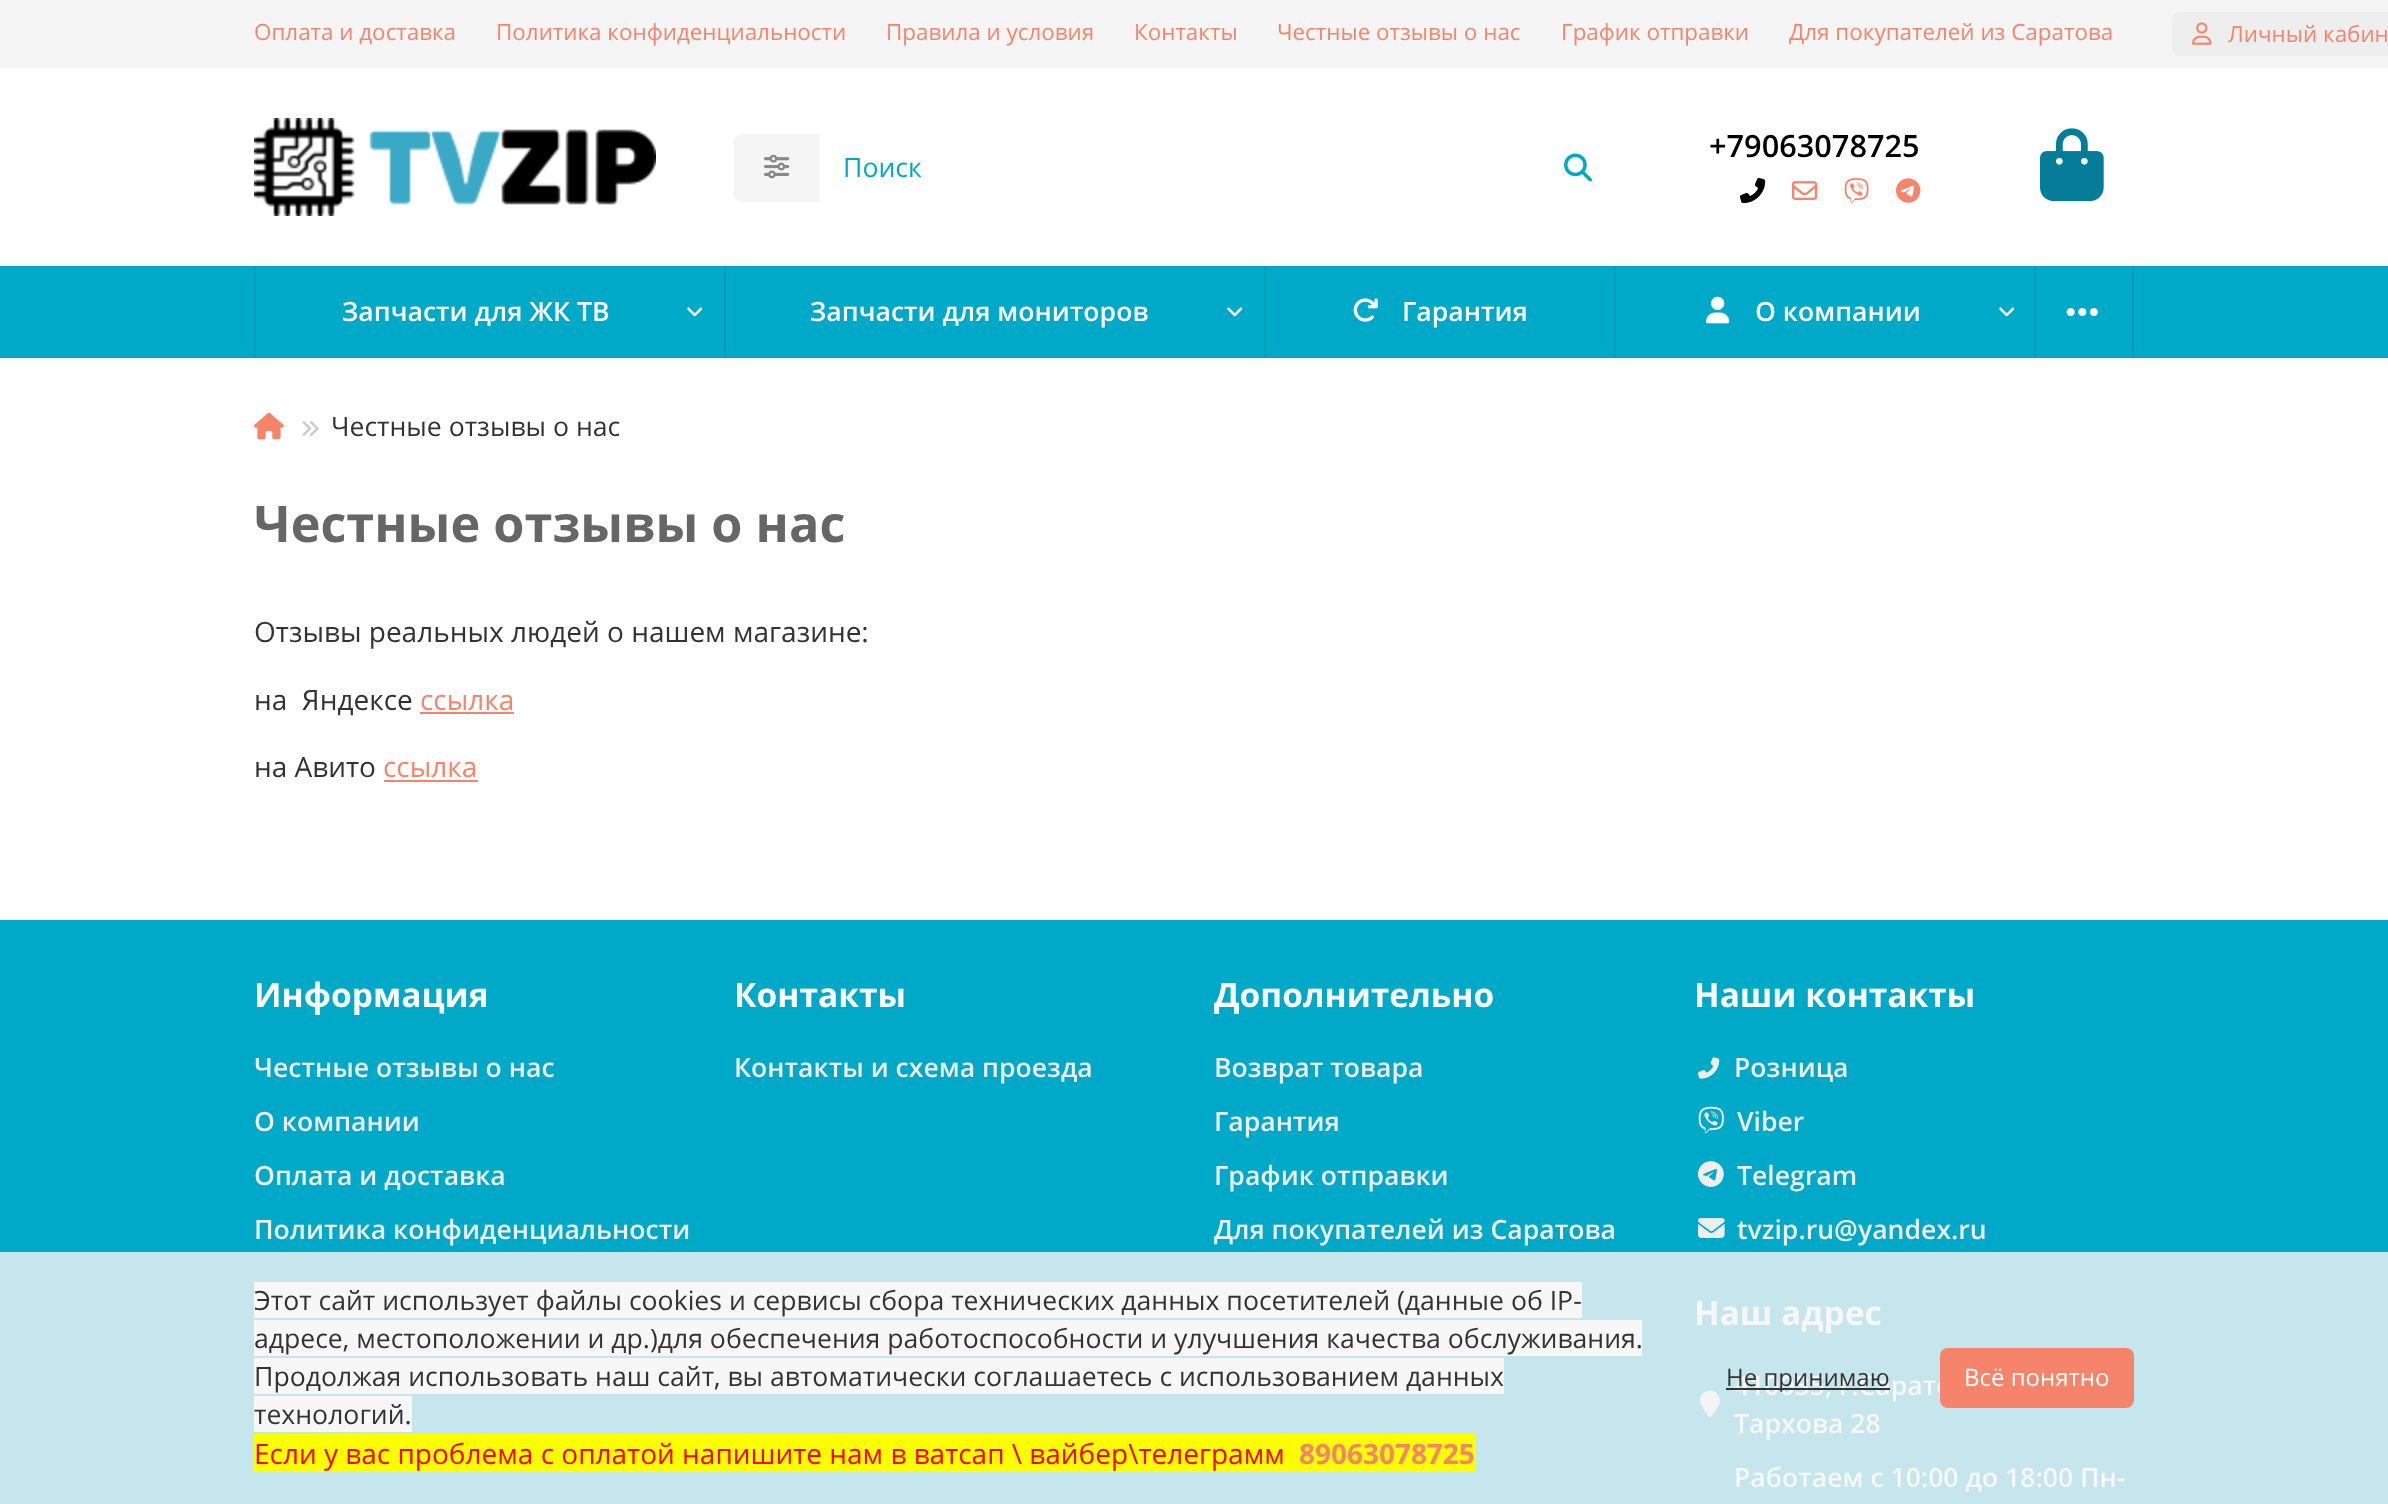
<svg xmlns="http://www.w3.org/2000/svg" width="2388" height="1504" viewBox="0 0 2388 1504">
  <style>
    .t1 { font: 22.4px Open Sans; fill: #f6846a; }
    .t2 { font: 600 30.75px Open Sans; fill: #000; }
    .t3 { font: 26.6px Open Sans; fill: #00a9c8; }
    .t4 { font: 600 26.6px Open Sans; fill: #fff; }
    .t5 { font: 26.6px Open Sans; fill: #333; }
    .t6 { font: bold 50.4px Open Sans; fill: #666; }
    .t7 { font: 28px Open Sans; fill: #333; }
    .t8 { font: 28px Open Sans; fill: #f6846a; }
    .t9 { font: bold 33.5px Open Sans; fill: #fff; }
    .t10 { font: 600 26.6px Open Sans; fill: #eee; }
    .t11 { font: bold 33.5px Open Sans; fill: #f7f7f7; }
    .t12 { font: 600 26.6px Open Sans; fill: #f7f7f7; }
    .t13 { font: 28px Open Sans; fill: #f00; }
    .t14 { font: bold 28px Open Sans; fill: #f6846a; }
    .t15 { font: 24px Open Sans; fill: #333; }
    .t16 { font: 24px Open Sans; fill: #fff; }
  </style>
  <rect width="100%" height="100%" fill="#fff"/>
  <rect x="0" y="0" width="2388" height="68" fill="#f5f5f5"/>
  <text x="254" y="40" class="t1">Оплата и доставка</text>
  <text x="496" y="40" class="t1">Политика конфиденциальности</text>
  <text x="886" y="40" class="t1">Правила и условия</text>
  <text x="1134" y="40" class="t1">Контакты</text>
  <text x="1277" y="40" class="t1">Честные отзывы о нас</text>
  <text x="1561" y="40" class="t1">График отправки</text>
  <text x="1789" y="40" class="t1">Для покупателей из Саратова</text>
  <rect x="2172" y="12" width="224" height="44" rx="8" fill="#eee"/>
  <image x="2192" y="22" width="20" height="23" href="images/1.png"/>
  <text x="2228" y="42" class="t1">Личный кабин</text>
  <image x="254" y="118" width="402" height="98" href="images/2.png"/>
  <text x="1709" y="157" class="t2">+79063078725</text>
  <image x="1740" y="178" width="26" height="26" href="images/3.png"/>
  <image x="1792" y="181" width="26" height="19" href="images/4.png"/>
  <image x="1844" y="177" width="25" height="27" href="images/5.png"/>
  <image x="1896" y="178" width="25" height="25" href="images/6.png"/>
  <image x="2040" y="128" width="64" height="74" href="images/7.png"/>
  <path d="M742 134H820V202H742C737.5 202 734 198.5 734 194V142C734 137.5 737.5 134 742 134Z" fill="#f5f5f5"/>
  <image x="764" y="154" width="26" height="25" href="images/8.png"/>
  <text x="843" y="177" class="t3">Поиск</text>
  <image x="1564" y="153" width="28" height="29" href="images/9.png"/>
  <rect x="0" y="266" width="2388" height="92" fill="#00a9c8"/>
  <rect x="254" y="266" width="2" height="92" fill="#009bb8"/>
  <text x="342" y="321" class="t4">Запчасти для ЖК ТВ</text>
  <image x="687" y="307" width="16" height="10" href="images/10.png"/>
  <rect x="724" y="266" width="2" height="92" fill="#009bb8"/>
  <text x="810" y="321" class="t4">Запчасти для мониторов</text>
  <image x="1227" y="307" width="16" height="10" href="images/10.png"/>
  <rect x="1264" y="266" width="2" height="92" fill="#009bb8"/>
  <image x="1353" y="298" width="25" height="24" href="images/11.png"/>
  <text x="1402" y="321" class="t4">Гарантия</text>
  <rect x="1614" y="266" width="2" height="92" fill="#009bb8"/>
  <image x="1706" y="296" width="24" height="28" href="images/12.png"/>
  <text x="1755" y="321" class="t4">О компании</text>
  <image x="1999" y="307" width="16" height="10" href="images/10.png"/>
  <rect x="2034" y="266" width="2" height="92" fill="#009bb8"/>
  <rect x="2132" y="266" width="2" height="92" fill="#009bb8"/>
  <image x="2066" y="308" width="32" height="9" href="images/13.png"/>
  <image x="254" y="412" width="30" height="28" href="images/14.png"/>
  <image x="302" y="421" width="17" height="15" href="images/15.png"/>
  <text x="331" y="436" class="t5">Честные отзывы о нас</text>
  <text x="254" y="542" class="t6">Честные отзывы о нас</text>
  <text x="254" y="642" class="t7">Отзывы реальных людей о нашем магазине:</text>
  <text x="254" y="710" class="t7" xml:space="preserve">на  Яндексе</text>
  <text x="420" y="710" class="t8">ссылка</text>
  <rect x="420" y="712" width="94" height="2" fill="#f6846a"/>
  <text x="254" y="777" class="t7">на Авито</text>
  <text x="383" y="777" class="t8">ссылка</text>
  <rect x="384" y="780" width="94" height="2" fill="#f6846a"/>
  <rect x="0" y="920" width="2388" height="332" fill="#00a9c8"/>
  <rect x="0" y="1252" width="2388" height="252" fill="#c4e6ec"/>
  <text x="254" y="1007" class="t9">Информация</text>
  <text x="254" y="1077" class="t10">Честные отзывы о нас</text>
  <text x="254" y="1131" class="t10">О компании</text>
  <text x="254" y="1185" class="t10">Оплата и доставка</text>
  <text x="254" y="1239" class="t10">Политика конфиденциальности</text>
  <text x="734" y="1007" class="t9">Контакты</text>
  <text x="734" y="1077" class="t10">Контакты и схема проезда</text>
  <text x="1214" y="1007" class="t9">Дополнительно</text>
  <text x="1214" y="1077" class="t10">Возврат товара</text>
  <text x="1214" y="1131" class="t10">Гарантия</text>
  <text x="1214" y="1185" class="t10">График отправки</text>
  <text x="1214" y="1239" class="t10">Для покупателей из Саратова</text>
  <text x="1694" y="1007" class="t9">Наши контакты</text>
  <image x="1698" y="1057" width="22" height="22" href="images/16.png"/>
  <text x="1734" y="1077" class="t10">Розница</text>
  <image x="1698" y="1106" width="26" height="28" href="images/17.png"/>
  <text x="1737" y="1131" class="t10">Viber</text>
  <image x="1698" y="1161" width="26" height="26" href="images/18.png"/>
  <text x="1737" y="1185" class="t10">Telegram</text>
  <image x="1698" y="1218" width="27" height="20" href="images/19.png"/>
  <text x="1737" y="1239" class="t10">tvzip.ru@yandex.ru</text>
  <text x="1694" y="1325" class="t11">Наш адрес</text>
  <image x="1700" y="1390" width="20" height="28" href="images/20.png"/>
  <text x="1734" y="1395" class="t12">410035, г.Сарато</text>
  <text x="1734" y="1433" class="t12">Тархова 28</text>
  <text x="1734" y="1487" class="t12">Работаем с 10:00 до 18:00 Пн-</text>
  <rect x="254" y="1282" width="1328" height="36" fill="#f7f7f7"/>
  <text x="254" y="1310" class="t5">Этот сайт использует файлы cookies и сервисы сбора технических данных посетителей (данные об IP-</text>
  <rect x="254" y="1320" width="1388" height="36" fill="#f7f7f7"/>
  <text x="254" y="1348" class="t5">адресе, местоположении и др.)для обеспечения работоспособности и улучшения качества обслуживания.</text>
  <rect x="254" y="1358" width="1250" height="36" fill="#f7f7f7"/>
  <text x="254" y="1386" class="t5">Продолжая использовать наш сайт, вы автоматически соглашаетесь с использованием данных</text>
  <rect x="254" y="1396" width="158" height="36" fill="#f7f7f7"/>
  <text x="254" y="1424" class="t5">технологий.</text>
  <rect x="254" y="1434" width="1222" height="38" fill="#ff0"/>
  <text x="254" y="1464" class="t13">Если у вас проблема с оплатой напишите нам в ватсап \ вайбер\телеграмм</text>
  <text x="1299" y="1464" class="t14">89063078725</text>
  <rect x="1726" y="1388" width="164" height="2" fill="#333"/>
  <text x="1726" y="1386" class="t15">Не принимаю</text>
  <rect x="1940" y="1348" width="194" height="60" rx="8" fill="#f6846a"/>
  <text x="1964" y="1386" class="t16">Всё понятно</text>
</svg>
